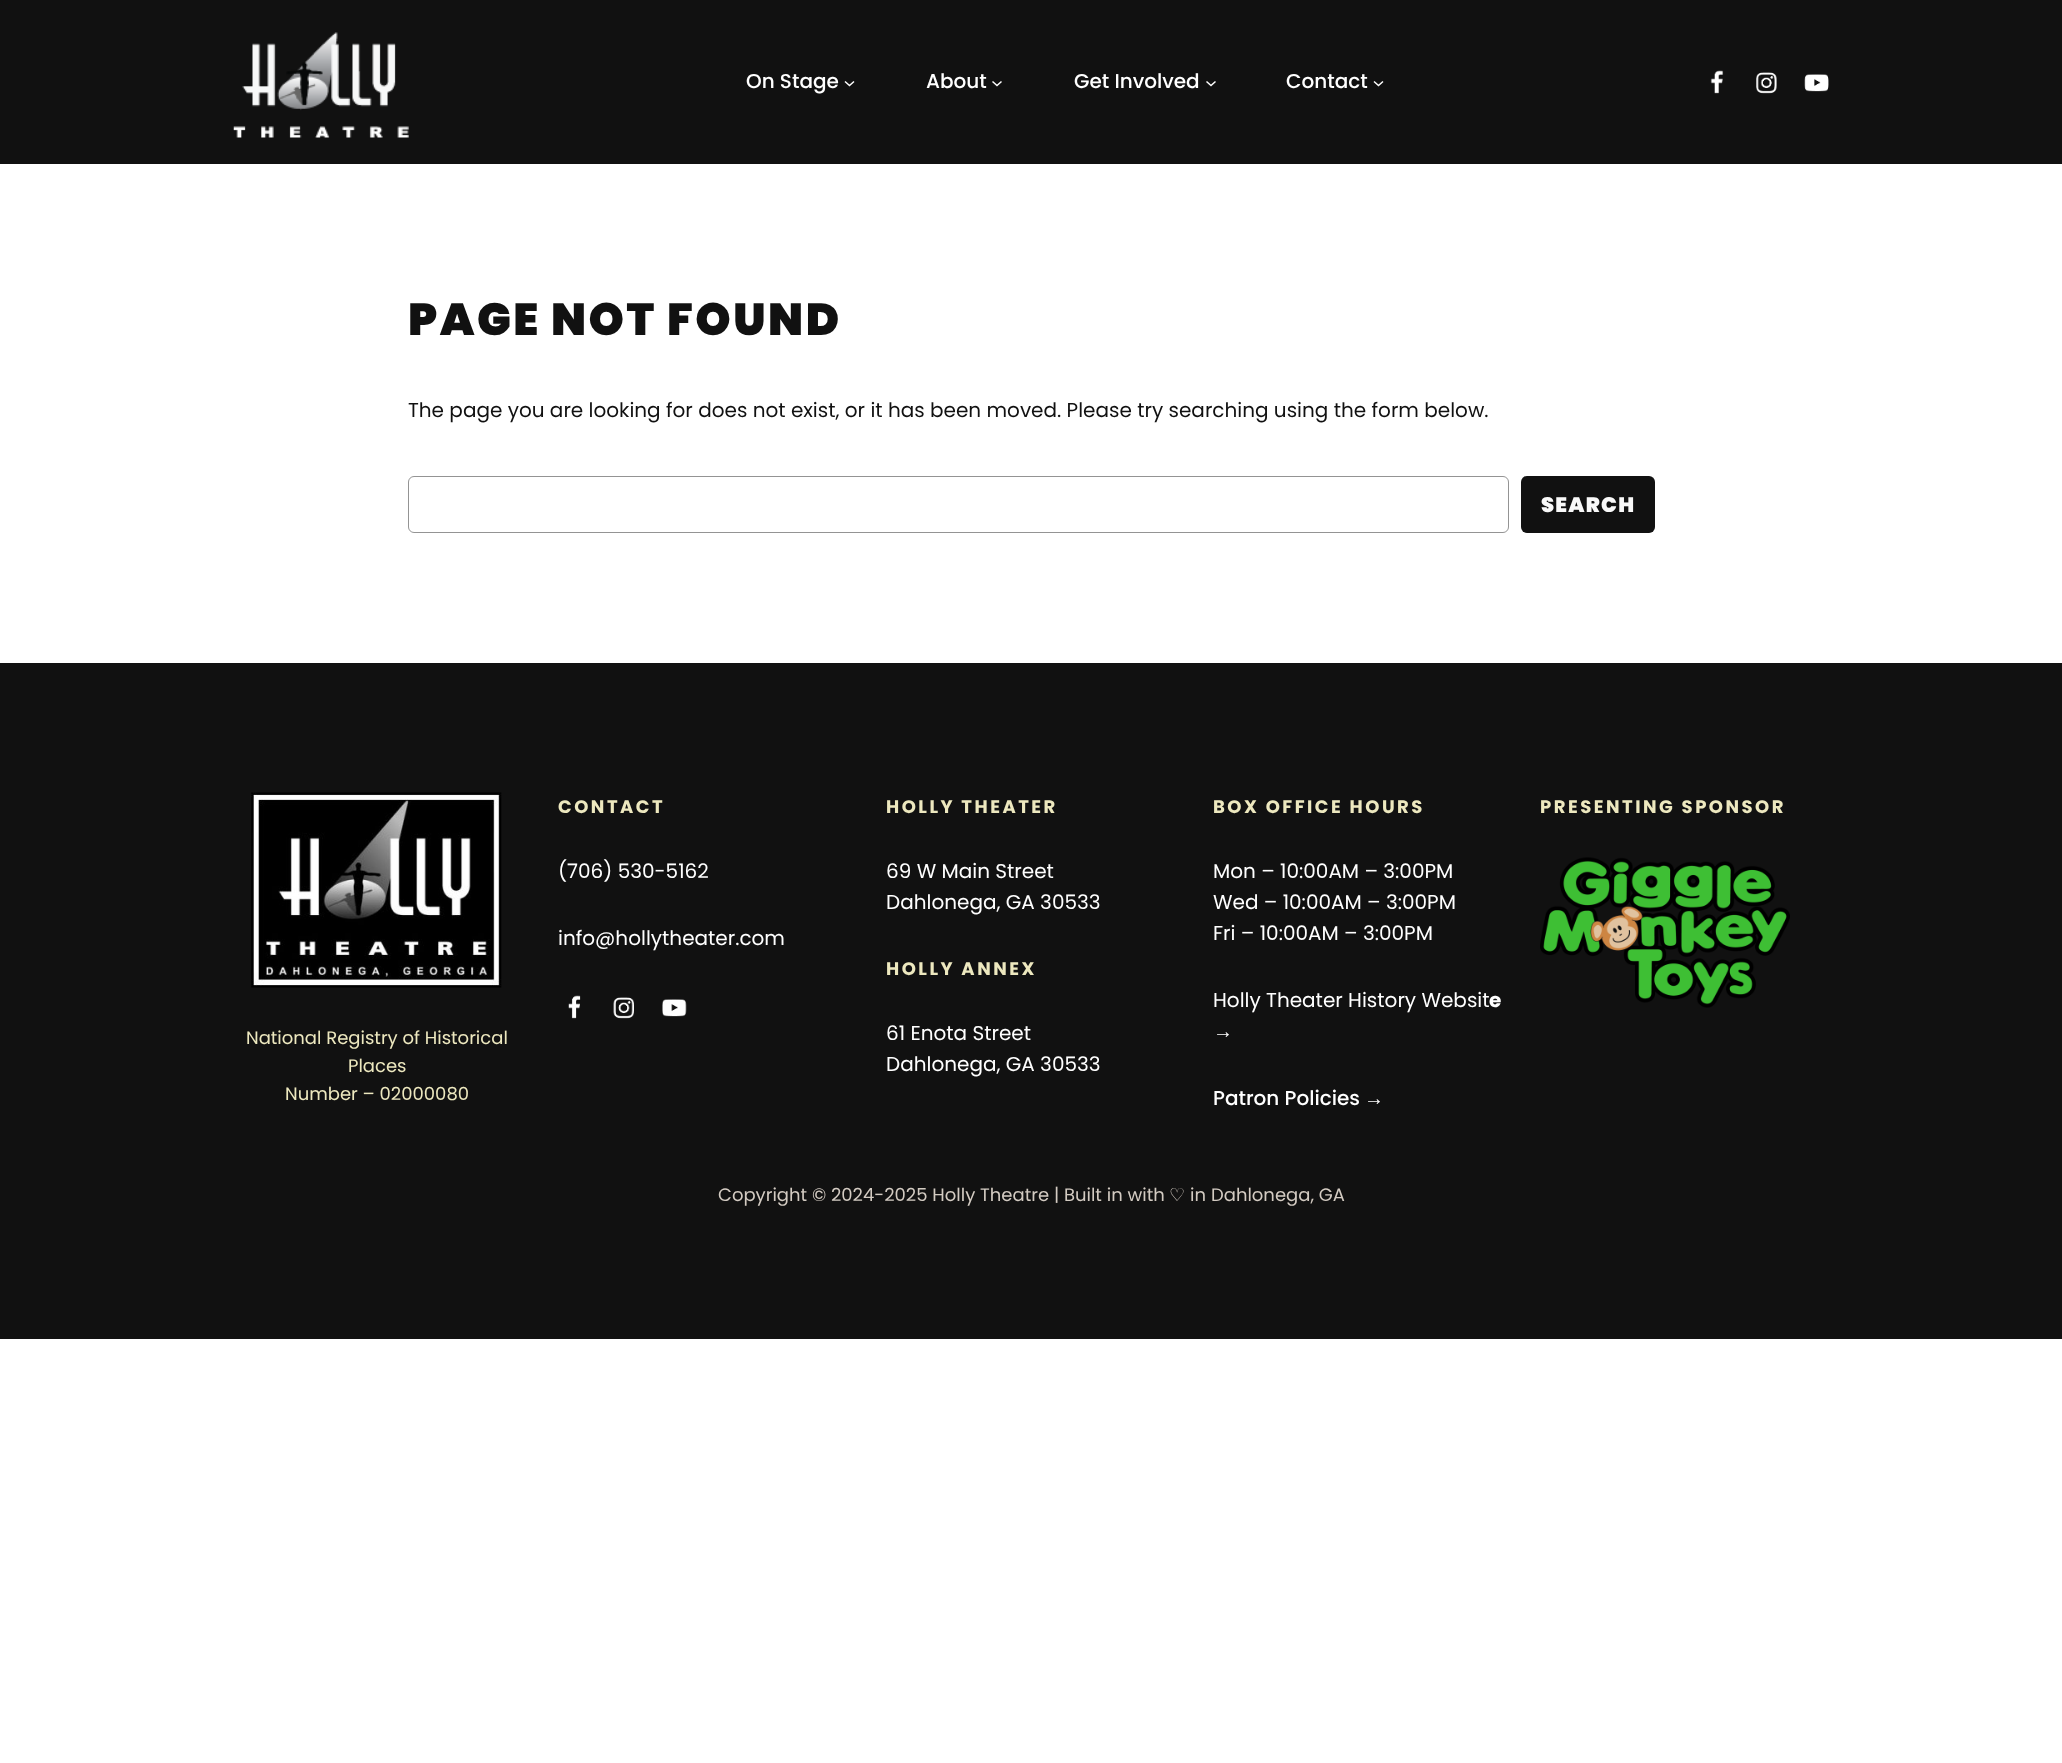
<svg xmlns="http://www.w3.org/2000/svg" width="2062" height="1763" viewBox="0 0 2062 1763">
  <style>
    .t1 { font: 500 20px Poppins; fill: #fff; }
    .t2 { font: 900 45px Poppins; letter-spacing: 2.5px; fill: #111; }
    .t3 { font: 20px Poppins; fill: #111; }
    .t4 { font: 900 21px Poppins; letter-spacing: 1.25px; fill: #f9f9f9; }
    .t5 { font: bold 18px Poppins; letter-spacing: 2.5px; fill: #ede8bf; }
    .t6 { font: 20px Poppins; fill: #fff; }
    .t7 { font: bold 20px Poppins; fill: #fff; }
    .t8 { font: bold 20px Liberation Sans; fill: #fff; }
    .t9 { font: 18px Poppins; fill: #ede8bf; }
    .t10 { font: 18px Poppins; fill: #d3cbc2; }
    .t11 { font: 18px DejaVu Sans; fill: #d3cbc2; }
  </style>
  <rect width="100%" height="100%" fill="#fff"/>
  <rect x="0" y="0" width="2062" height="164" fill="#111"/>
  <image x="233" y="32" width="176" height="106" href="images/1.png"/>
  <text x="746" y="88" class="t1">On Stage</text>
  <path d="M845 81.5L849.5 85.5L854 81.5" fill="none" stroke="#fff" stroke-width="1.5"/>
  <text x="926" y="88" class="t1">About</text>
  <path d="M992.5 81.5L997 85.5L1001.5 81.5" fill="none" stroke="#fff" stroke-width="1.5"/>
  <text x="1074" y="88" class="t1">Get Involved</text>
  <path d="M1206.5 81.5L1211 85.5L1215.5 81.5" fill="none" stroke="#fff" stroke-width="1.5"/>
  <text x="1286" y="88" class="t1">Contact</text>
  <path d="M1374 81.5L1378.5 85.5L1383 81.5" fill="none" stroke="#fff" stroke-width="1.5"/>
  <image x="1710" y="70" width="14" height="24" href="images/2.png"/>
  <image x="1756" y="72" width="21" height="22" href="images/3.png"/>
  <image x="1804" y="74" width="25" height="18" href="images/4.png"/>
  <text x="408" y="335" class="t2">PAGE NOT FOUND</text>
  <text x="408" y="417" class="t3">The page you are looking for does not exist, or it has been moved. Please try searching using the form below.</text>
  <rect x="408.5" y="476.5" width="1100" height="56" rx="5.5" fill="none" stroke="#949494"/>
  <rect x="1521" y="476" width="134" height="57" rx="6" fill="#111"/>
  <text x="1541" y="512" class="t4">SEARCH</text>
  <rect x="0" y="663" width="2062" height="676" fill="#111"/>
  <text x="558" y="813" class="t5">CONTACT</text>
  <text x="558" y="878" class="t6">(706) 530-5162</text>
  <text x="558" y="945" class="t6">info@hollytheater.com</text>
  <image x="568" y="995" width="13" height="24" href="images/5.png"/>
  <image x="613" y="997" width="21" height="22" href="images/6.png"/>
  <image x="662" y="999" width="25" height="18" href="images/7.png"/>
  <text x="886" y="813" class="t5">HOLLY THEATER</text>
  <text x="886" y="878" class="t6">69 W Main Street</text>
  <text x="886" y="909" class="t6">Dahlonega, GA 30533</text>
  <text x="886" y="975" class="t5">HOLLY ANNEX</text>
  <text x="886" y="1040" class="t6">61 Enota Street</text>
  <text x="886" y="1071" class="t6">Dahlonega, GA 30533</text>
  <text x="1213" y="813" class="t5">BOX OFFICE HOURS</text>
  <text x="1213" y="878" class="t6">Mon – 10:00AM – 3:00PM</text>
  <text x="1213" y="909" class="t6">Wed – 10:00AM – 3:00PM</text>
  <text x="1213" y="940" class="t6">Fri – 10:00AM – 3:00PM</text>
  <text x="1213" y="1007" class="t6">Holly Theater History Websit</text>
  <text x="1489" y="1007" class="t7">e</text>
  <text x="1213" y="1038" class="t8">→</text>
  <text x="1213" y="1105" class="t1">Patron Policies</text>
  <text x="1364" y="1105" class="t8">→</text>
  <text x="1540" y="813" class="t5">PRESENTING SPONSOR</text>
  <image x="1540" y="857" width="250" height="151" href="images/8.png"/>
  <image x="251" y="792" width="251" height="196" href="images/9.png"/>
  <text x="246" y="1044" class="t9">National Registry of Historical</text>
  <text x="348" y="1072" class="t9">Places</text>
  <text x="285" y="1100" class="t9">Number – 02000080</text>
  <text x="718" y="1201" class="t10">Copyright © 2024-2025 Holly Theatre | Built in with</text>
  <text x="1169" y="1201" class="t11">♡</text>
  <text x="1190" y="1201" class="t10">in</text>
  <text x="1211" y="1201" class="t10">Dahlonega, GA</text>
</svg>
